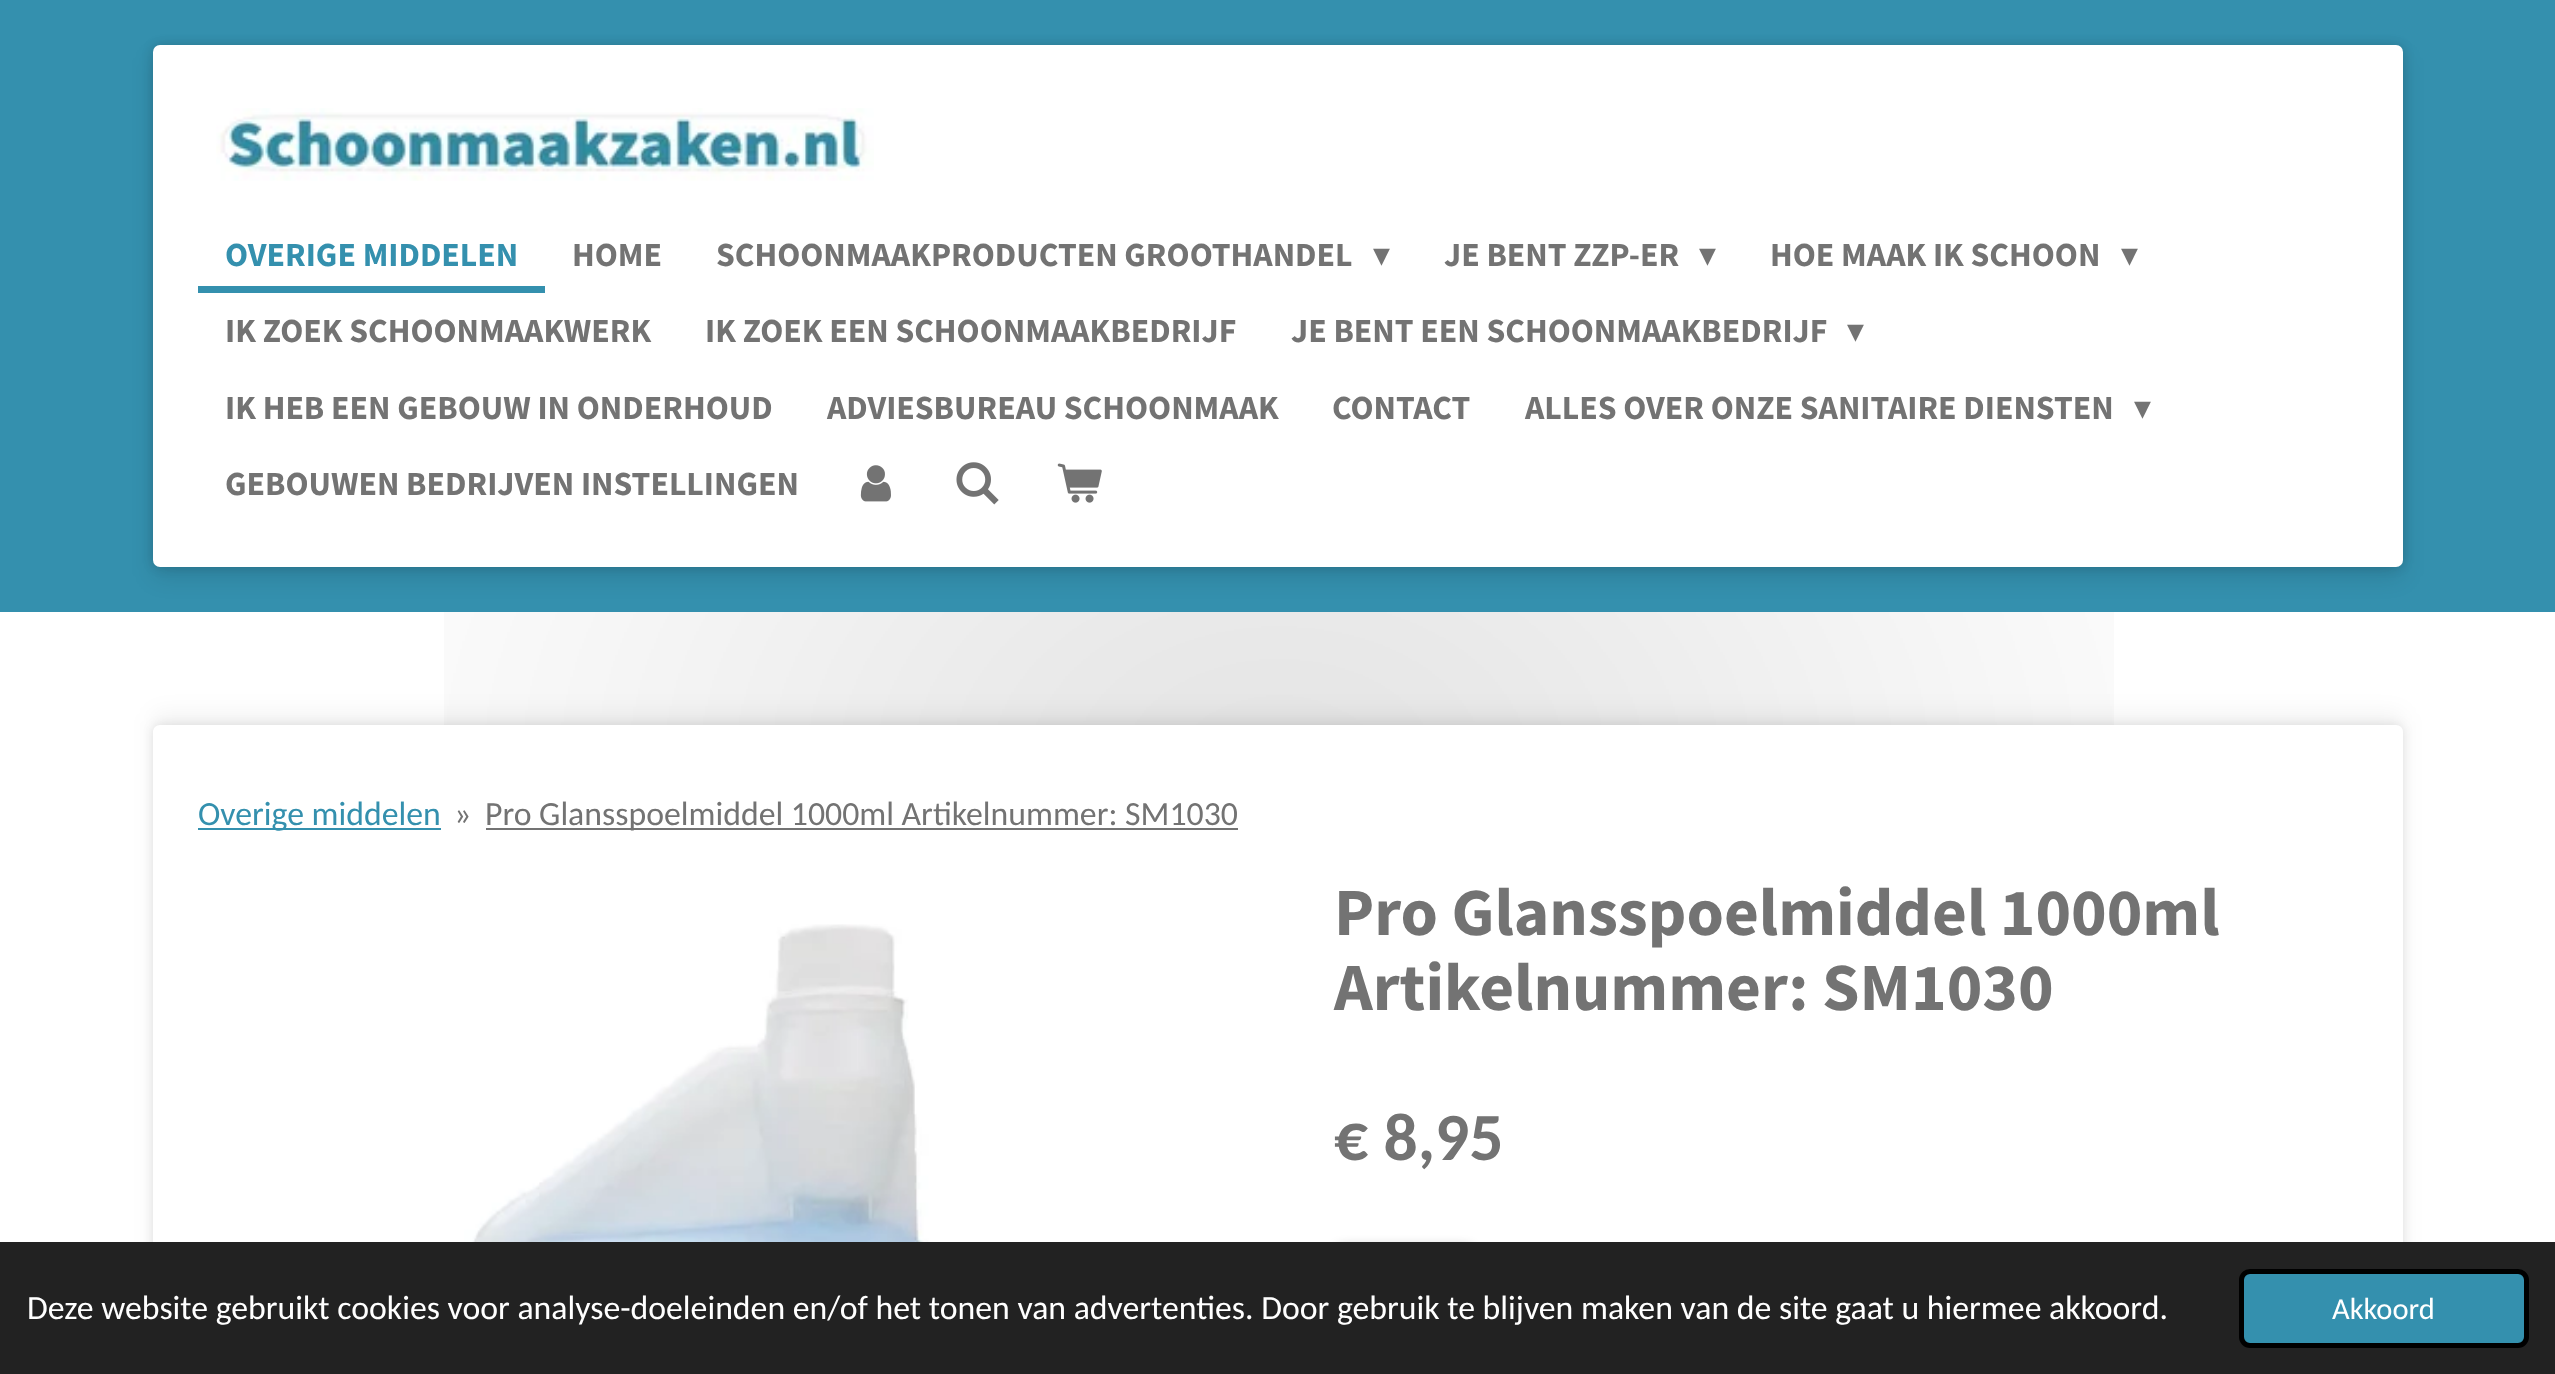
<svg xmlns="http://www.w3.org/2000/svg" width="2555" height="1374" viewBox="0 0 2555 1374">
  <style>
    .t1 { font: bold 33.75px Source Sans Pro; fill: #3490ae; }
    .t2 { font: bold 33.75px Source Sans Pro; fill: #737373; }
    .t3 { font: 33.75px DejaVu Sans; fill: #737373; }
    .t4 { font: 33.75px Carlito; fill: #3490ae; }
    .t5 { font: 33.75px Carlito; fill: #737373; }
    .t6 { font: bold 67.5px Source Sans Pro; fill: #737373; }
    .t7 { font: bold 67.5px Carlito; fill: #737373; }
    .t8 { font: 33.75px Carlito; fill: #fff; }
    .t9 { font: 30.5px Carlito; fill: #fff; }
  </style>
  <rect width="100%" height="100%" fill="#fff"/>
  <rect x="0" y="0" width="2555" height="612" fill="#3490ae"/>
  <rect x="153" y="56" width="2250" height="522" rx="7" fill="#0000001a" filter="blur(11px)"/>
  <rect x="153" y="45" width="2250" height="522" rx="7" fill="#00000026" filter="blur(5.5px)"/>
  <rect x="153" y="45" width="2250" height="522" rx="7" fill="#fff"/>
  <image x="216" y="108" width="658" height="73" href="images/1.png"/>
  <rect x="198" y="286" width="347" height="7" fill="#3490ae"/>
  <text x="225" y="266" class="t1">OVERIGE MIDDELEN</text>
  <text x="572" y="266" class="t2">HOME</text>
  <text x="716" y="266" class="t2">SCHOONMAAKPRODUCTEN GROOTHANDEL</text>
  <text x="1373" y="266" class="t3">▾</text>
  <text x="1444" y="266" class="t2">JE BENT ZZP-ER</text>
  <text x="1699" y="266" class="t3">▾</text>
  <text x="1770" y="266" class="t2">HOE MAAK IK SCHOON</text>
  <text x="2121" y="266" class="t3">▾</text>
  <text x="225" y="342" class="t2">IK ZOEK SCHOONMAAKWERK</text>
  <text x="705" y="342" class="t2">IK ZOEK EEN SCHOONMAAKBEDRIJF</text>
  <text x="1291" y="342" class="t2">JE BENT EEN SCHOONMAAKBEDRIJF</text>
  <text x="1847" y="342" class="t3">▾</text>
  <text x="225" y="419" class="t2">IK HEB EEN GEBOUW IN ONDERHOUD</text>
  <text x="827" y="419" class="t2">ADVIESBUREAU SCHOONMAAK</text>
  <text x="1332" y="419" class="t2">CONTACT</text>
  <text x="1525" y="419" class="t2">ALLES OVER ONZE SANITAIRE DIENSTEN</text>
  <text x="2134" y="419" class="t3">▾</text>
  <text x="225" y="495" class="t2">GEBOUWEN BEDRIJVEN INSTELLINGEN</text>
  <image x="860" y="465" width="31" height="37" href="images/2.png"/>
  <image x="956" y="462" width="43" height="43" href="images/3.png"/>
  <image x="1057" y="463" width="45" height="40" href="images/4.png"/>
  <image x="444" y="612" width="1670" height="113" href="images/5.png"/>
  <rect x="153" y="713" width="2250" height="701" rx="7" fill="#0000000d" filter="blur(11px)"/>
  <rect x="153" y="725" width="2250" height="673" rx="7" fill="#0000001a" filter="blur(5.5px)"/>
  <path d="M160 725H2396C2400 725 2403 728 2403 732V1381H153V732C153 728 156 725 160 725Z" fill="#fff"/>
  <rect x="198" y="828" width="243" height="2" fill="#3490ae"/>
  <text x="198" y="825" class="t4">Overige middelen</text>
  <text x="454" y="825" class="t5">»</text>
  <rect x="486" y="828" width="752" height="2" fill="#737373"/>
  <text x="485" y="825" class="t5">Pro Glansspoelmiddel 1000ml Artikelnummer: SM1030</text>
  <image x="464" y="924" width="485" height="318" href="images/6.png"/>
  <text x="1334" y="935" class="t6">Pro Glansspoelmiddel 1000ml</text>
  <text x="1334" y="1010" class="t6">Artikelnummer: SM1030</text>
  <text x="1334" y="1160" class="t7">€ 8,95</text>
  <rect x="1337" y="1247" width="135" height="112" rx="5" fill="#00000059" filter="blur(5.5px)"/>
  <rect x="0" y="1242" width="2555" height="132" fill="#222"/>
  <text x="27" y="1319" class="t8">Deze website gebruikt cookies voor analyse-doeleinden en/of het tonen van advertenties. Door gebruik te blijven maken van de site gaat u hiermee akkoord.</text>
  <rect x="2241.5" y="1271.5" width="285" height="74" rx="8.5" fill="#3490ae" stroke="#000" stroke-width="5"/>
  <text x="2332" y="1319" class="t9">Akkoord</text>
</svg>
